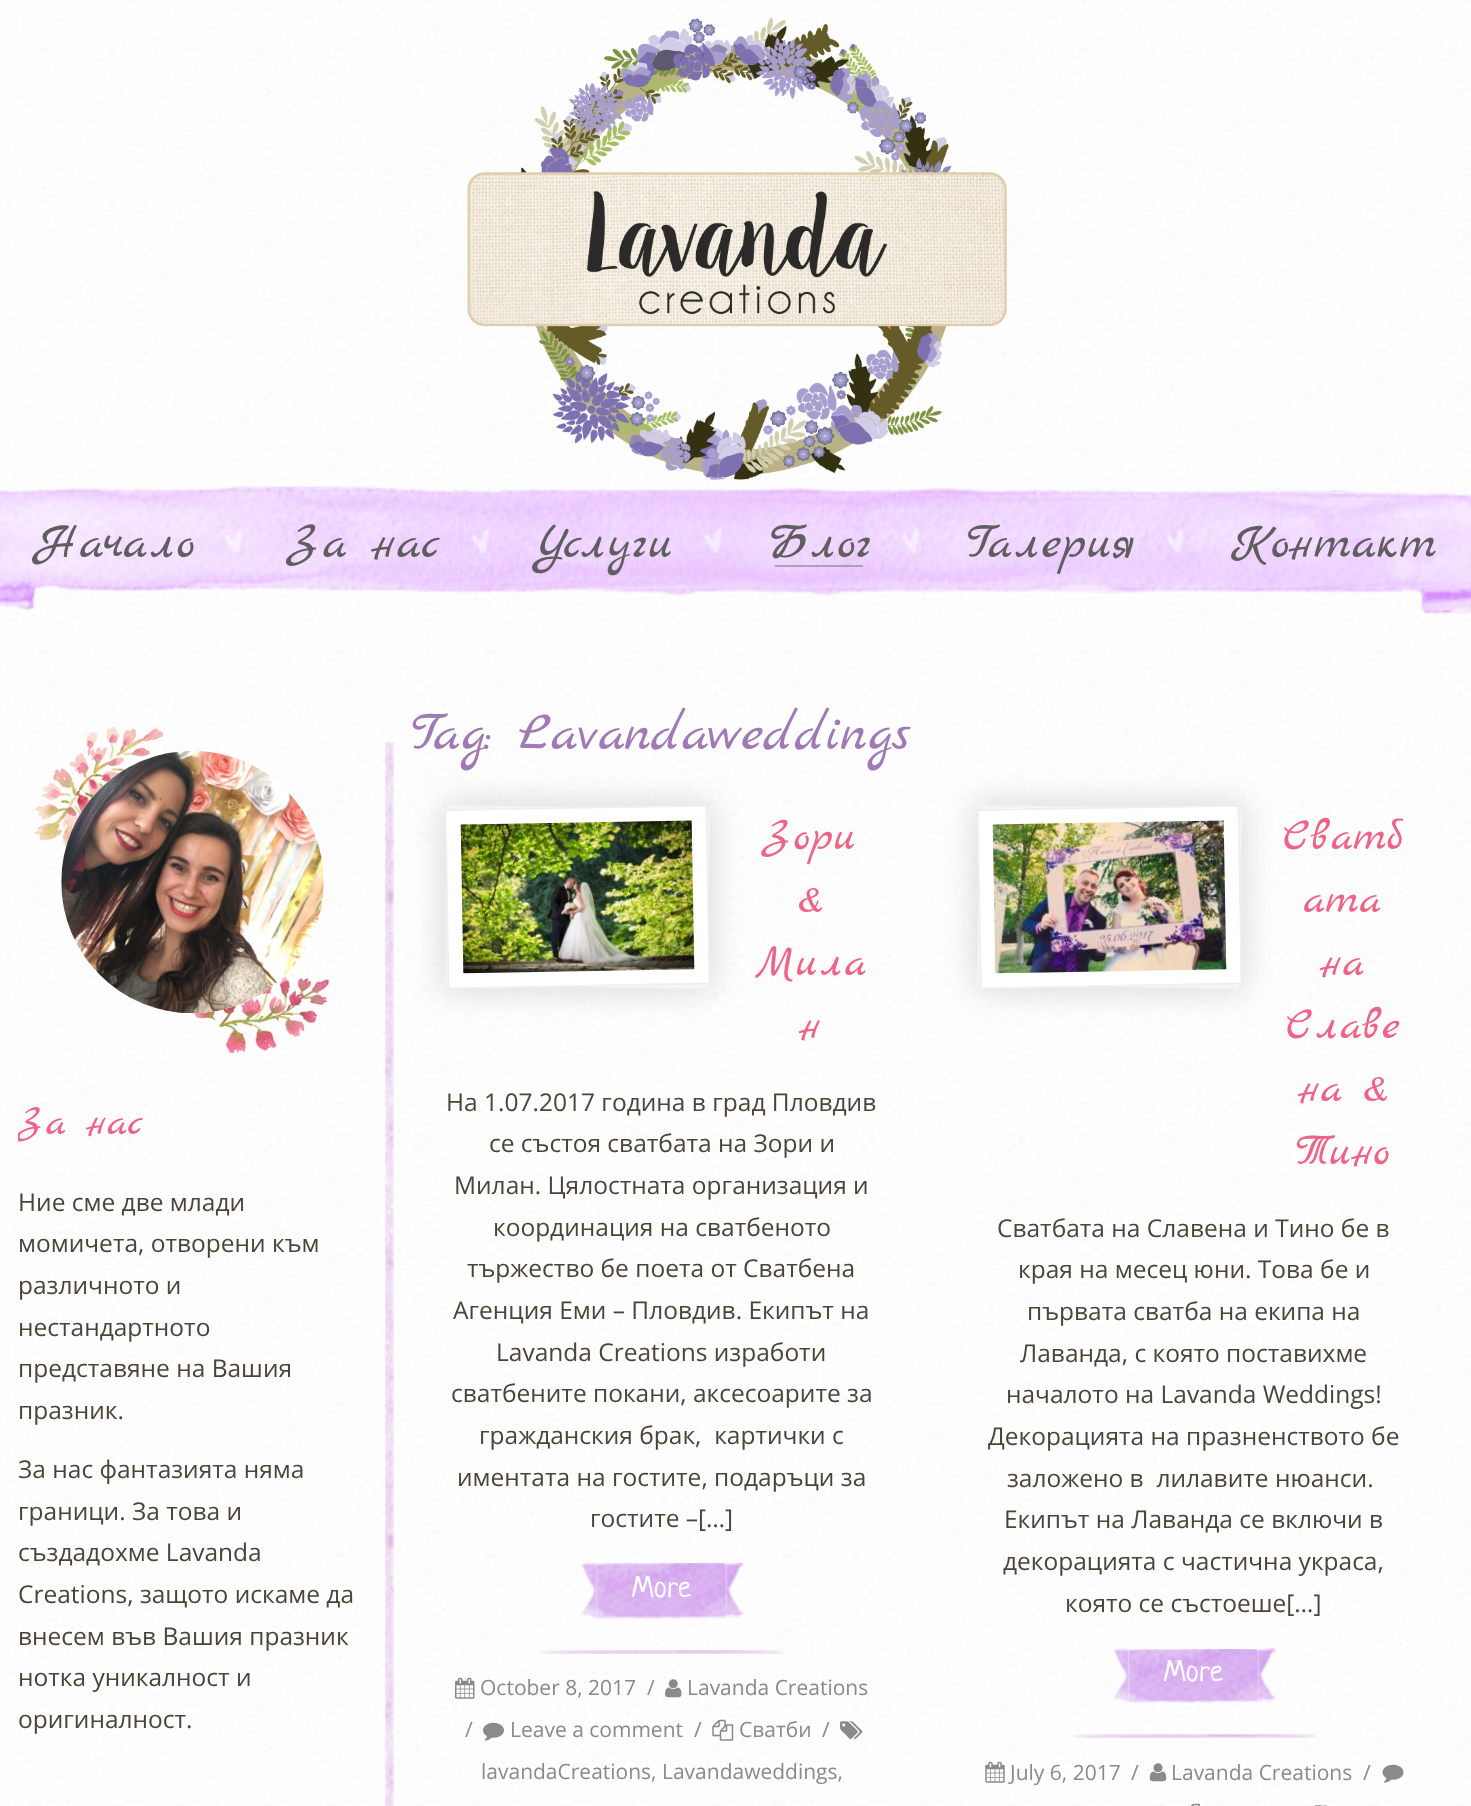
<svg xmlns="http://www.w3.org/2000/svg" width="1471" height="1806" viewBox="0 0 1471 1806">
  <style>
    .t1 { font: 50.75px Marck Script; fill: #605e61; }
    .t2 { font: 42px Marck Script; fill: #ed6487; }
    .t3 { font: 24.5px Open Sans; fill: #4a4439; }
    .t4 { font: 56px Marck Script; fill: #9f7ab5; }
    .t5 { font: 45.5px Marck Script; fill: #ed6487; }
    .t6 { font: 30px Neucha; fill: #fff; }
    .t7 { font: 21px Open Sans; fill: #8a8a8a; }
  </style>
  <defs>
    <clipPath id="clip1"><rect x="18" y="707" width="1436" height="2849"/></clipPath>
  </defs>
  <rect width="100%" height="100%" fill="#fff"/>
  <image x="0" y="0" width="1471" height="1806" href="images/1.png"/>
  <image x="467" y="17" width="540" height="463" href="images/2.png"/>
  <image x="0" y="486" width="1471" height="129" href="images/3.png"/>
  <text x="35" y="557" class="t1">Начало</text>
  <image x="224" y="528" width="18" height="25" href="images/4.png"/>
  <text x="289" y="557" class="t1">За нас</text>
  <image x="471" y="528" width="18" height="25" href="images/5.png"/>
  <text x="535" y="557" class="t1">Услуги</text>
  <image x="704" y="528" width="18" height="25" href="images/6.png"/>
  <text x="767" y="557" class="t1">Блог</text>
  <rect x="775" y="565" width="88" height="2" fill="#7777778a"/>
  <image x="901" y="528" width="19" height="25" href="images/7.png"/>
  <text x="966" y="557" class="t1">Галерия</text>
  <image x="1166" y="528" width="18" height="25" href="images/8.png"/>
  <text x="1231" y="557" class="t1">Контакт</text>
  <image x="35" y="726" width="295" height="328" href="images/9.png"/>
  <rect x="61" y="751" width="263" height="262" rx="131" fill="#fff"/>
  <image x="61" y="751" width="263" height="263" href="images/10.png"/>
  <image x="385" y="742" width="9" height="1064" href="images/11.png"/>
  <g clip-path="url(#clip1)">
    <text x="18" y="1134" class="t2">За нас</text>
  </g>
  <text x="18" y="1211" class="t3">Ние сме две млади</text>
  <text x="18" y="1252" class="t3">момичета, отворени към</text>
  <text x="18" y="1294" class="t3">различното и</text>
  <text x="18" y="1336" class="t3">нестандартното</text>
  <text x="18" y="1377" class="t3">представяне на Вашия</text>
  <text x="18" y="1419" class="t3">празник.</text>
  <text x="18" y="1478" class="t3">За нас фантазията няма</text>
  <text x="18" y="1520" class="t3">граници. За това и</text>
  <text x="18" y="1561" class="t3">създадохме Lavanda</text>
  <text x="18" y="1603" class="t3">Creations, защото искаме да</text>
  <text x="18" y="1645" class="t3">внесем във Вашия празник</text>
  <text x="18" y="1686" class="t3">нотка уникалност и</text>
  <text x="18" y="1728" class="t3">оригиналност.</text>
  <text x="411" y="749" class="t4">Tag: Lavandaweddings</text>
  <rect x="443" y="803" width="269" height="188" fill="#d9d9d9" filter="blur(16px)"/>
  <path d="M448 805L710 809L707 989L445 985Z" fill="#f4f4f4"/>
  <path d="M445 809L707 805L710 985L448 989Z" fill="#fff"/>
  <path d="M445.5 810L706.5 805.5L709.5 983.5L448.5 988.5Z" fill="none" stroke="#eee" stroke-width="1.8"/>
  <image x="460" y="820" width="235" height="154" href="images/12.png"/>
  <text x="764" y="849" class="t5">Зори</text>
  <text x="799" y="912" class="t5">&amp;</text>
  <text x="755" y="975" class="t5">Мила</text>
  <text x="799" y="1038" class="t5">н</text>
  <text x="446" y="1111" class="t3">На 1.07.2017 година в град Пловдив</text>
  <text x="489" y="1152" class="t3">се състоя сватбата на Зори и</text>
  <text x="454" y="1194" class="t3">Милан. Цялостната организация и</text>
  <text x="493" y="1236" class="t3">координация на сватбеното</text>
  <text x="467" y="1277" class="t3">тържество бе поета от Сватбена</text>
  <text x="453" y="1319" class="t3">Агенция Еми – Пловдив. Екипът на</text>
  <text x="496" y="1361" class="t3">Lavanda Creations изработи</text>
  <text x="451" y="1402" class="t3">сватбените покани, аксесоарите за</text>
  <text x="479" y="1444" class="t3" xml:space="preserve">гражданския брак,  картички с</text>
  <text x="457" y="1486" class="t3">иментата на гостите, подаръци за</text>
  <text x="590" y="1527" class="t3">гостите –[…]</text>
  <image x="581" y="1562" width="163" height="57" href="images/13.png"/>
  <text x="632" y="1597" class="t6">More</text>
  <image x="539" y="1650" width="246" height="4" href="images/14.png"/>
  <image x="455" y="1677" width="20" height="22" href="images/15.png"/>
  <text x="480" y="1695" class="t7">October 8, 2017</text>
  <text x="647" y="1695" class="t7">/</text>
  <image x="665" y="1679" width="17" height="19" href="images/16.png"/>
  <text x="687" y="1695" class="t7">Lavanda Creations</text>
  <text x="465" y="1737" class="t7">/</text>
  <image x="483" y="1722" width="21" height="19" href="images/17.png"/>
  <text x="510" y="1737" class="t7">Leave a comment</text>
  <text x="694" y="1737" class="t7">/</text>
  <image x="712" y="1719" width="22" height="22" href="images/18.png"/>
  <text x="739" y="1737" class="t7">Сватби</text>
  <text x="822" y="1737" class="t7">/</text>
  <image x="840" y="1721" width="23" height="18" href="images/19.png"/>
  <text x="481" y="1779" class="t7">lavandaCreations, Lavandaweddings,</text>
  <rect x="975" y="803" width="269" height="188" fill="#d9d9d9" filter="blur(16px)"/>
  <path d="M980 805L1242 809L1239 989L977 985Z" fill="#f4f4f4"/>
  <path d="M977 809L1239 805L1242 985L980 989Z" fill="#fff"/>
  <path d="M977.5 810L1238.5 805.5L1241.5 983.5L981 988.5Z" fill="none" stroke="#eee" stroke-width="1.8"/>
  <image x="992" y="820" width="235" height="154" href="images/20.png"/>
  <text x="1282" y="849" class="t5">Сватб</text>
  <text x="1303" y="912" class="t5">ата</text>
  <text x="1320" y="975" class="t5">на</text>
  <text x="1285" y="1038" class="t5">Славе</text>
  <text x="1298" y="1101" class="t5">на &amp;</text>
  <text x="1296" y="1164" class="t5">Тино</text>
  <text x="997" y="1237" class="t3">Сватбата на Славена и Тино бе в</text>
  <text x="1018" y="1278" class="t3">края на месец юни. Това бе и</text>
  <text x="1027" y="1320" class="t3">първата сватба на екипа на</text>
  <text x="1020" y="1362" class="t3">Лаванда, с която поставихме</text>
  <text x="1006" y="1403" class="t3">началото на Lavanda Weddings!</text>
  <text x="988" y="1445" class="t3">Декорацията на празненството бе</text>
  <text x="1007" y="1487" class="t3" xml:space="preserve">заложено в  лилавите нюанси.</text>
  <text x="1004" y="1528" class="t3">Екипът на Лаванда се включи в</text>
  <text x="1003" y="1570" class="t3">декорацията с частична украса,</text>
  <text x="1065" y="1612" class="t3">която се състоеше[…]</text>
  <image x="1113" y="1648" width="163" height="55" href="images/21.png"/>
  <text x="1164" y="1681" class="t6">More</text>
  <image x="1071" y="1734" width="246" height="4" href="images/22.png"/>
  <image x="985" y="1761" width="20" height="22" href="images/23.png"/>
  <text x="1010" y="1780" class="t7">July 6, 2017</text>
  <text x="1131" y="1780" class="t7">/</text>
  <image x="1149" y="1763" width="18" height="19" href="images/24.png"/>
  <text x="1171" y="1780" class="t7">Lavanda Creations</text>
  <text x="1363" y="1780" class="t7">/</text>
  <image x="1382" y="1764" width="22" height="19" href="images/25.png"/>
  <image x="1190" y="1803" width="10" height="3" href="images/26.png"/>
  <image x="1314" y="1805" width="13" height="1" href="images/27.png"/>
</svg>
